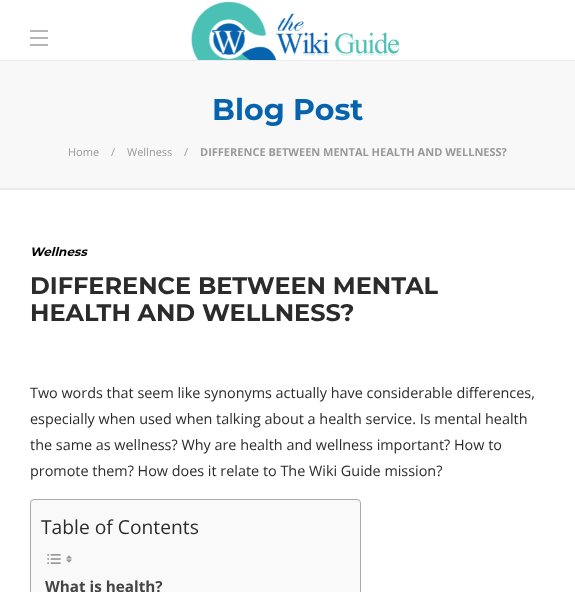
<svg xmlns="http://www.w3.org/2000/svg" width="575" height="592" viewBox="0 0 575 592">
  <style>
    .t1 { font: 100 30px Montserrat; fill: #0664ae; }
    .t2 { font: 11px Open Sans; fill: #999; }
    .t3 { font: bold 11px Open Sans; fill: #999; }
    .t4 { font: italic 100 12px Montserrat; fill: #000; }
    .t5 { font: 100 24px Montserrat; fill: #2b2b2b; }
    .t6 { font: 14.4px Open Sans; fill: #2b2b2b; }
    .t7 { font: 19.25px Open Sans; fill: #2b2b2b; }
    .t8 { font: bold 15.25px Open Sans; fill: #444; }
  </style>
  <rect width="100%" height="100%" fill="#fff"/>
  <rect x="30" y="30" width="18" height="2" fill="#b5b5b5"/>
  <rect x="30" y="37" width="18" height="2" fill="#b5b5b5"/>
  <rect x="30" y="44" width="18" height="2" fill="#b5b5b5"/>
  <image x="191" y="1" width="209" height="59" href="images/1.png"/>
  <rect x="0" y="61" width="575" height="127" fill="#f8f8f8"/>
  <rect x="0" y="60" width="575" height="1" fill="#ebebeb"/>
  <rect x="0" y="188" width="575" height="2" fill="#ebebeb"/>
  <text x="212" y="120" class="t1">Blog Post</text>
  <text x="68" y="156" class="t2">Home</text>
  <text x="111" y="156" class="t2">/</text>
  <text x="127" y="156" class="t2">Wellness</text>
  <text x="184" y="156" class="t2">/</text>
  <text x="200" y="156" class="t3">DIFFERENCE BETWEEN MENTAL HEALTH AND WELLNESS?</text>
  <text x="30" y="256" class="t4">Wellness</text>
  <text x="30" y="294" class="t5">DIFFERENCE BETWEEN MENTAL</text>
  <text x="30" y="321" class="t5">HEALTH AND WELLNESS?</text>
  <text x="30" y="398" class="t6">Two words that seem like synonyms actually have considerable differences,</text>
  <text x="30" y="424" class="t6">especially when used when talking about a health service. Is mental health</text>
  <text x="30" y="450" class="t6">the same as wellness? Why are health and wellness important? How to</text>
  <text x="30" y="476" class="t6">promote them? How does it relate to The Wiki Guide mission?</text>
  <rect x="30.5" y="499.5" width="330" height="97" rx="3.5" fill="#f9f9f9" stroke="#aaa"/>
  <text x="41" y="534" class="t7">Table of Contents</text>
  <image x="47" y="554" width="14" height="10" href="images/2.png"/>
  <image x="66" y="555" width="6" height="8" href="images/3.png"/>
  <text x="45" y="592" class="t8">What is health?</text>
</svg>
